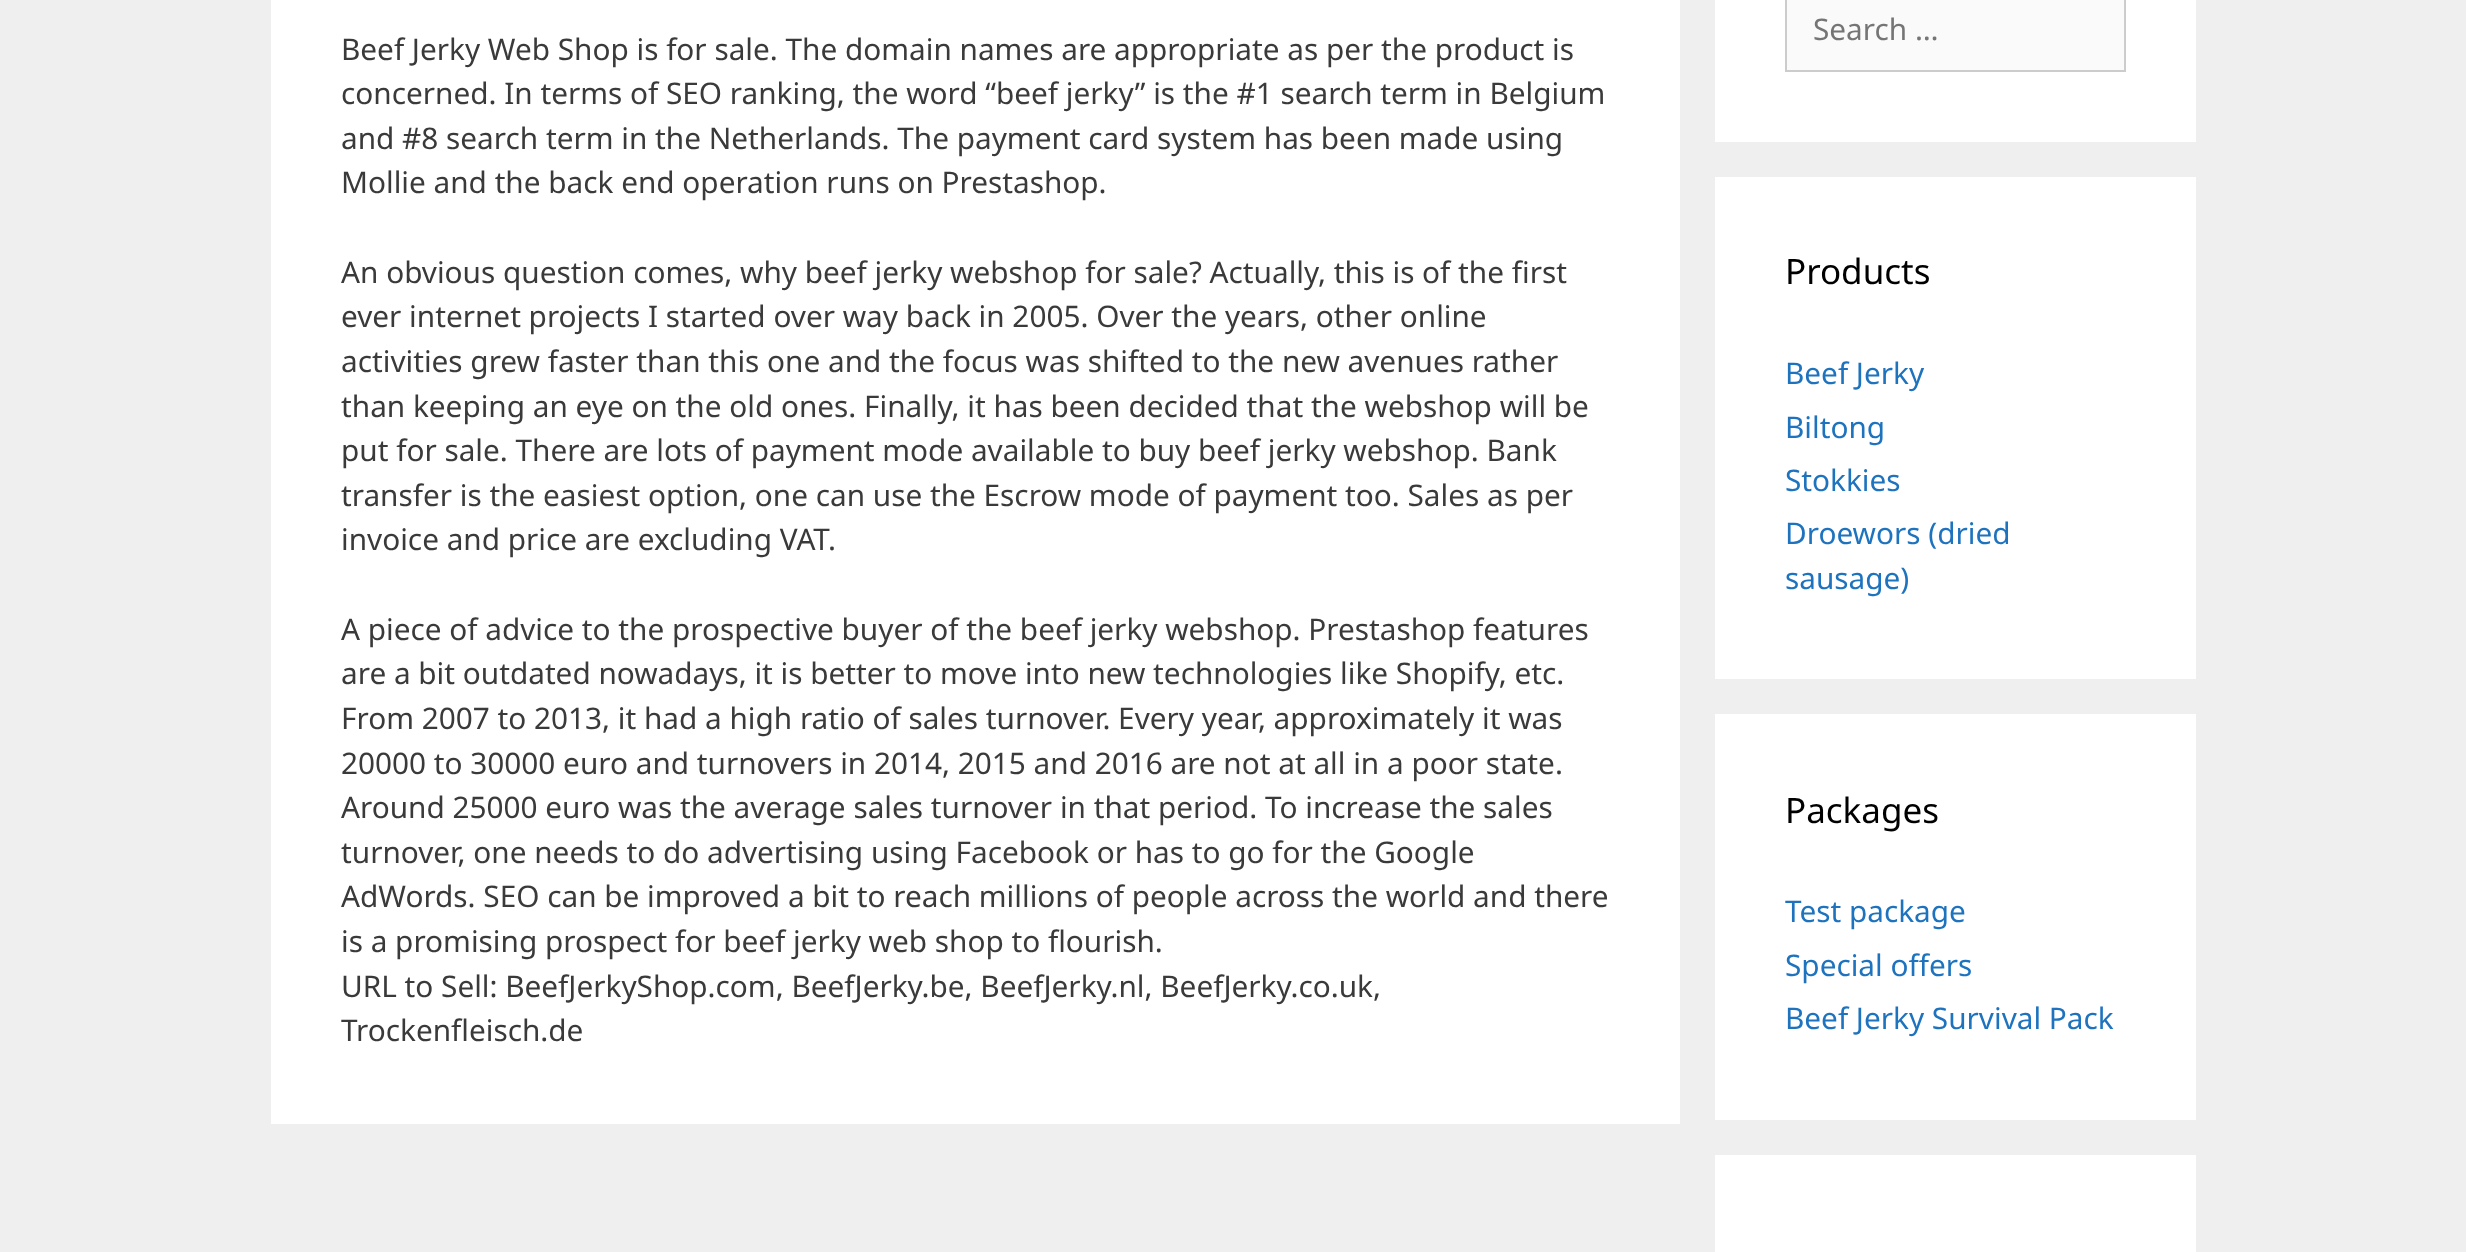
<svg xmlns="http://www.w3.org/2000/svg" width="2466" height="1252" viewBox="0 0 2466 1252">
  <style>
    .t1 { font: 29.75px Noto Sans; fill: #3a3a3a; }
    .t2 { font: 29.75px Noto Sans; fill: #757575; }
    .t3 { font: 35px Noto Sans; fill: #000; }
    .t4 { font: 29.75px Noto Sans; fill: #1e73be; }
  </style>
  <rect width="100%" height="100%" fill="#efefef"/>
  <rect x="271" y="0" width="1409" height="1124" fill="#fff"/>
  <text x="341" y="60" class="t1">Beef Jerky Web Shop is for sale. The domain names are appropriate as per the product is</text>
  <text x="341" y="104" class="t1">concerned. In terms of SEO ranking, the word “beef jerky” is the #1 search term in Belgium</text>
  <text x="341" y="149" class="t1">and #8 search term in the Netherlands. The payment card system has been made using</text>
  <text x="341" y="193" class="t1">Mollie and the back end operation runs on Prestashop.</text>
  <text x="341" y="283" class="t1">An obvious question comes, why beef jerky webshop for sale? Actually, this is of the first</text>
  <text x="341" y="327" class="t1">ever internet projects I started over way back in 2005. Over the years, other online</text>
  <text x="341" y="372" class="t1">activities grew faster than this one and the focus was shifted to the new avenues rather</text>
  <text x="341" y="417" class="t1">than keeping an eye on the old ones. Finally, it has been decided that the webshop will be</text>
  <text x="341" y="461" class="t1">put for sale. There are lots of payment mode available to buy beef jerky webshop. Bank</text>
  <text x="341" y="506" class="t1">transfer is the easiest option, one can use the Escrow mode of payment too. Sales as per</text>
  <text x="341" y="550" class="t1">invoice and price are excluding VAT.</text>
  <text x="341" y="640" class="t1">A piece of advice to the prospective buyer of the beef jerky webshop. Prestashop features</text>
  <text x="341" y="684" class="t1">are a bit outdated nowadays, it is better to move into new technologies like Shopify, etc.</text>
  <text x="341" y="729" class="t1">From 2007 to 2013, it had a high ratio of sales turnover. Every year, approximately it was</text>
  <text x="341" y="774" class="t1">20000 to 30000 euro and turnovers in 2014, 2015 and 2016 are not at all in a poor state.</text>
  <text x="341" y="818" class="t1">Around 25000 euro was the average sales turnover in that period. To increase the sales</text>
  <text x="341" y="863" class="t1">turnover, one needs to do advertising using Facebook or has to go for the Google</text>
  <text x="341" y="907" class="t1">AdWords. SEO can be improved a bit to reach millions of people across the world and there</text>
  <text x="341" y="952" class="t1">is a promising prospect for beef jerky web shop to flourish.</text>
  <text x="341" y="997" class="t1">URL to Sell: BeefJerkyShop.com, BeefJerky.be, BeefJerky.nl, BeefJerky.co.uk,</text>
  <text x="341" y="1041" class="t1">Trockenfleisch.de</text>
  <rect x="1715" y="0" width="481" height="142" fill="#fff"/>
  <rect x="1786" y="-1" width="339" height="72" fill="#fafafa" stroke="#ccc" stroke-width="2"/>
  <text x="1813" y="40" class="t2">Search …</text>
  <rect x="1715" y="177" width="481" height="502" fill="#fff"/>
  <text x="1785" y="284" class="t3">Products</text>
  <text x="1785" y="384" class="t4">Beef Jerky</text>
  <text x="1785" y="438" class="t4">Biltong</text>
  <text x="1785" y="491" class="t4">Stokkies</text>
  <text x="1785" y="544" class="t4">Droewors (dried</text>
  <text x="1785" y="589" class="t4">sausage)</text>
  <rect x="1715" y="714" width="481" height="406" fill="#fff"/>
  <text x="1785" y="823" class="t3">Packages</text>
  <text x="1785" y="922" class="t4">Test package</text>
  <text x="1785" y="976" class="t4">Special offers</text>
  <text x="1785" y="1029" class="t4">Beef Jerky Survival Pack</text>
  <rect x="1715" y="1155" width="481" height="97" fill="#fff"/>
</svg>
